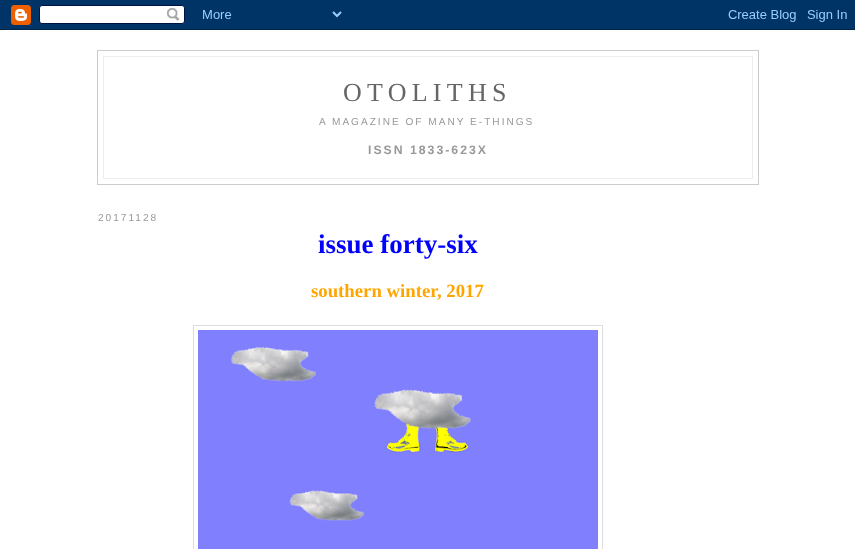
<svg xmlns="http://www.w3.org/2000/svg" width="855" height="549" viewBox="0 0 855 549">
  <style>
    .t1 { font: 26px Liberation Serif; letter-spacing: 5.25px; fill: #666; }
    .t2 { font: 10.1px Liberation Sans; letter-spacing: 2px; fill: #999; }
    .t3 { font: bold 12.25px Liberation Sans; letter-spacing: 2px; fill: #999; }
    .t4 { font: bold 27px Liberation Serif; fill: #00f; }
    .t5 { font: bold 18.75px Liberation Serif; fill: #ffa500; }
  </style>
  <rect width="100%" height="100%" fill="#fff"/>
  <image x="0" y="0" width="855" height="30" href="images/1.png"/>
  <rect x="97.5" y="50.5" width="661" height="134" fill="none" stroke="#ccc"/>
  <rect x="103" y="56" width="650" height="1" fill="#eee"/>
  <rect x="752" y="56" width="1" height="123" fill="#eee"/>
  <rect x="103" y="56" width="1" height="59" fill="#eee"/>
  <text x="343" y="101" class="t1">OTOLITHS</text>
  <rect x="103" y="178" width="650" height="1" fill="#eee"/>
  <rect x="103" y="115" width="1" height="64" fill="#eee"/>
  <text x="319" y="125" class="t2">A MAGAZINE OF MANY E-THINGS</text>
  <text x="368" y="154" class="t3">ISSN 1833-623X</text>
  <text x="98" y="221" class="t2">20171128</text>
  <text x="318" y="253" class="t4">issue forty-six</text>
  <text x="311" y="297" class="t5">southern winter, 2017</text>
  <rect x="193.5" y="325.5" width="409" height="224" fill="none" stroke="#ddd"/>
  <image x="198" y="330" width="400" height="219" href="images/2.png"/>
</svg>
